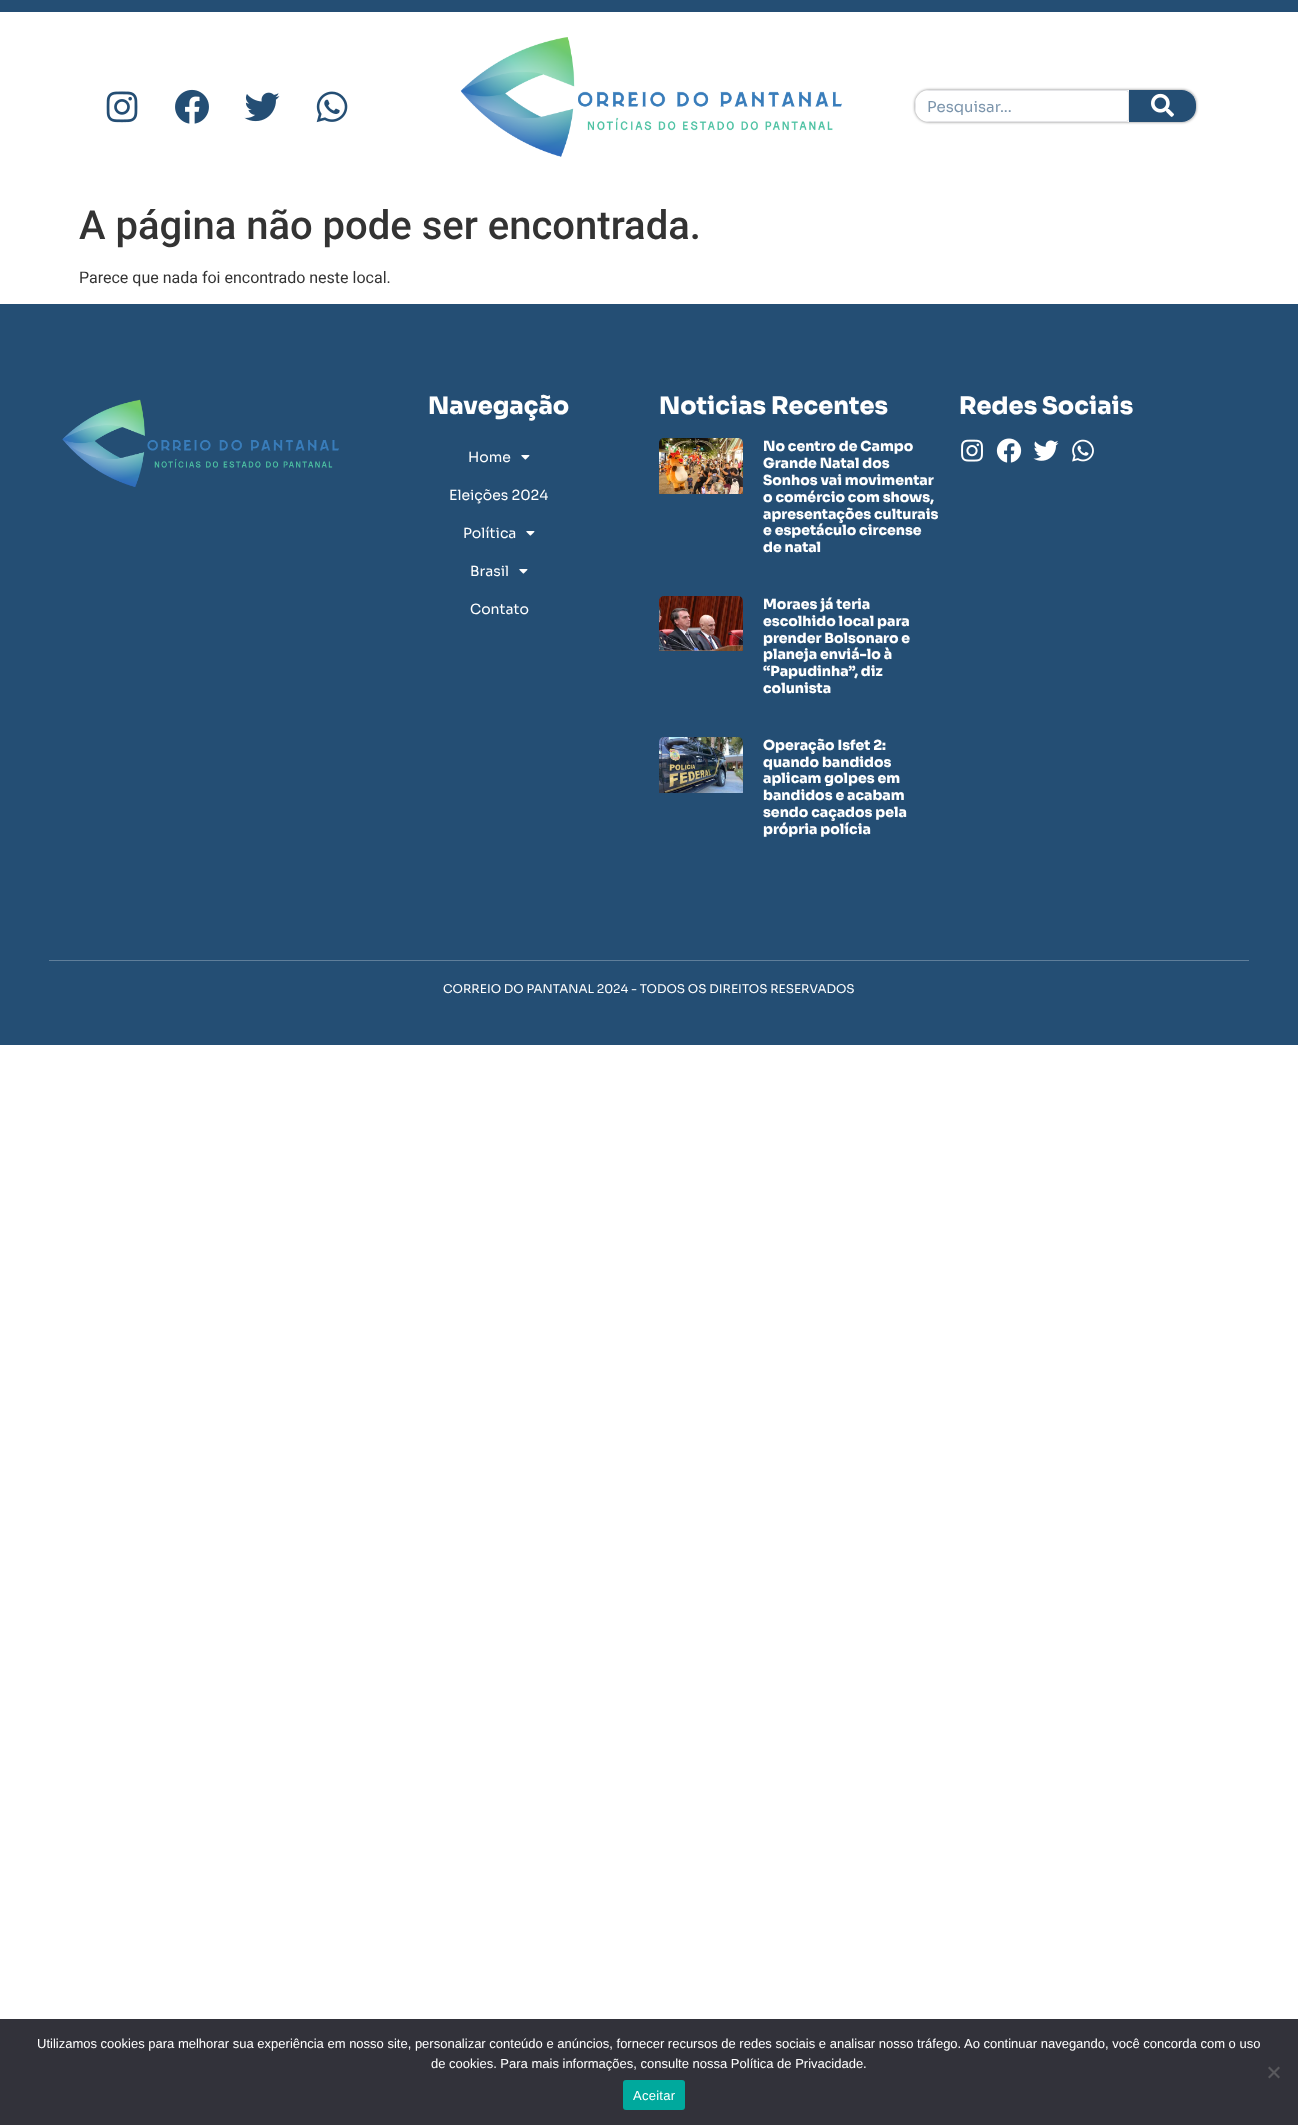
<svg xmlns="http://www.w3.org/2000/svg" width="1298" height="2125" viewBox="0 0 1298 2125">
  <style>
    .t1 { font: 15px Sora; fill: #7c95ac; }
    .t2 { font: 500 40px Roboto; fill: #333; }
    .t3 { font: 16px Roboto; fill: #333; }
    .t4 { font: 800 24px Sora; fill: #fff; }
    .t5 { font: 14px Sora; fill: #fff; }
    .t6 { font: 800 14px Sora; fill: #fff; }
    .t7 { font: 12px Sora; fill: #fff; }
    .t8 { font: 13px Liberation Sans; fill: #fff; }
    .t9 { font: 13px Liberation Sans; letter-spacing: 0.25px; fill: #fff; }
  </style>
  <rect width="100%" height="100%" fill="#fff"/>
  <rect x="0" y="0" width="1298" height="12" fill="#244e74"/>
  <image x="106" y="91" width="32" height="32" href="images/1.png"/>
  <image x="175" y="89" width="34" height="35" href="images/2.png"/>
  <image x="244" y="92" width="36" height="30" href="images/3.png"/>
  <image x="316" y="91" width="32" height="32" href="images/4.png"/>
  <image x="460" y="37" width="382" height="120" href="images/5.png"/>
  <rect x="915" y="90" width="281" height="32" rx="14" fill="#00000080" filter="blur(1.5px)"/>
  <rect x="915" y="90" width="281" height="32" rx="14" fill="#fff"/>
  <path d="M915 104C915 107 915 110 916 113V99ZM929 90L924 91H1126C1127 91 1128 92 1128 93V119C1128 120 1127 121 1126 121H924L929 122H1126C1128 122 1129 121 1129 119V93C1129 91 1128 90 1126 90Z" fill="#e5e5e8" fill-rule="evenodd"/>
  <text x="927" y="112" class="t1">Pesquisar...</text>
  <path d="M1129 90H1182C1189.5 90 1196 96.5 1196 104V108C1196 115.5 1189.5 122 1182 122H1129Z" fill="#244e74"/>
  <image x="1151" y="93" width="23" height="24" href="images/6.png"/>
  <text x="79" y="239" class="t2">A página não pode ser encontrada.</text>
  <text x="79" y="283" class="t3">Parece que nada foi encontrado neste local.</text>
  <rect x="0" y="304" width="1298" height="741" fill="#244e74"/>
  <image x="62" y="399" width="277" height="88" href="images/7.png"/>
  <text x="428" y="414" class="t4">Navegação</text>
  <text x="468" y="462" class="t5">Home</text>
  <image x="521" y="455" width="9" height="5" href="images/8.png"/>
  <text x="449" y="500" class="t5">Eleições 2024</text>
  <text x="463" y="538" class="t5">Política</text>
  <image x="526" y="531" width="9" height="5" href="images/8.png"/>
  <text x="470" y="576" class="t5">Brasil</text>
  <image x="519" y="569" width="9" height="5" href="images/8.png"/>
  <text x="470" y="614" class="t5">Contato</text>
  <text x="659" y="414" class="t4">Noticias Recentes</text>
  <image x="659" y="438" width="84" height="56" href="images/9.png"/>
  <text x="763" y="451" class="t6">No centro de Campo</text>
  <text x="763" y="468" class="t6">Grande Natal dos</text>
  <text x="763" y="485" class="t6">Sonhos vai movimentar</text>
  <text x="763" y="502" class="t6">o comércio com shows,</text>
  <text x="763" y="519" class="t6">apresentações culturais</text>
  <text x="763" y="535" class="t6">e espetáculo circense</text>
  <text x="763" y="552" class="t6">de natal</text>
  <image x="659" y="596" width="84" height="55" href="images/10.png"/>
  <text x="763" y="609" class="t6">Moraes já teria</text>
  <text x="763" y="626" class="t6">escolhido local para</text>
  <text x="763" y="643" class="t6">prender Bolsonaro e</text>
  <text x="763" y="659" class="t6">planeja enviá-lo à</text>
  <text x="763" y="676" class="t6">“Papudinha”, diz</text>
  <text x="763" y="693" class="t6">colunista</text>
  <image x="659" y="737" width="84" height="56" href="images/11.png"/>
  <text x="763" y="750" class="t6">Operação Isfet 2:</text>
  <text x="763" y="767" class="t6">quando bandidos</text>
  <text x="763" y="783" class="t6">aplicam golpes em</text>
  <text x="763" y="800" class="t6">bandidos e acabam</text>
  <text x="763" y="817" class="t6">sendo caçados pela</text>
  <text x="763" y="834" class="t6">própria polícia</text>
  <text x="959" y="414" class="t4">Redes Sociais</text>
  <image x="961" y="439" width="22" height="23" href="images/12.png"/>
  <image x="996" y="438" width="26" height="25" href="images/13.png"/>
  <image x="1033" y="440" width="26" height="21" href="images/14.png"/>
  <image x="1072" y="439" width="22" height="23" href="images/15.png"/>
  <rect x="49" y="960" width="1200" height="1" fill="#5f7e9a"/>
  <text x="443" y="993" class="t7">CORREIO DO PANTANAL 2024 - TODOS OS DIREITOS RESERVADOS</text>
  <rect x="0" y="2019" width="1298" height="106" fill="#32323a"/>
  <text x="37" y="2048" class="t8">Utilizamos cookies para melhorar sua experiência em nosso site, personalizar conteúdo e anúncios, fornecer recursos de redes sociais e analisar nosso tráfego. Ao continuar navegando, você concorda com o uso</text>
  <text x="431" y="2068" class="t8">de cookies. Para mais informações, consulte nossa Política de Privacidade.</text>
  <path d="M1278.5 2066.5L1280 2068L1269.5 2078.5L1268 2077Z" fill="#59595d"/>
  <path d="M1268 2068L1269.5 2066.5L1280 2077L1278.5 2078.5Z" fill="#59595d"/>
  <rect x="623" y="2080" width="62" height="30" rx="3" fill="#00a99d"/>
  <text x="633" y="2100" class="t9">Aceitar</text>
</svg>
